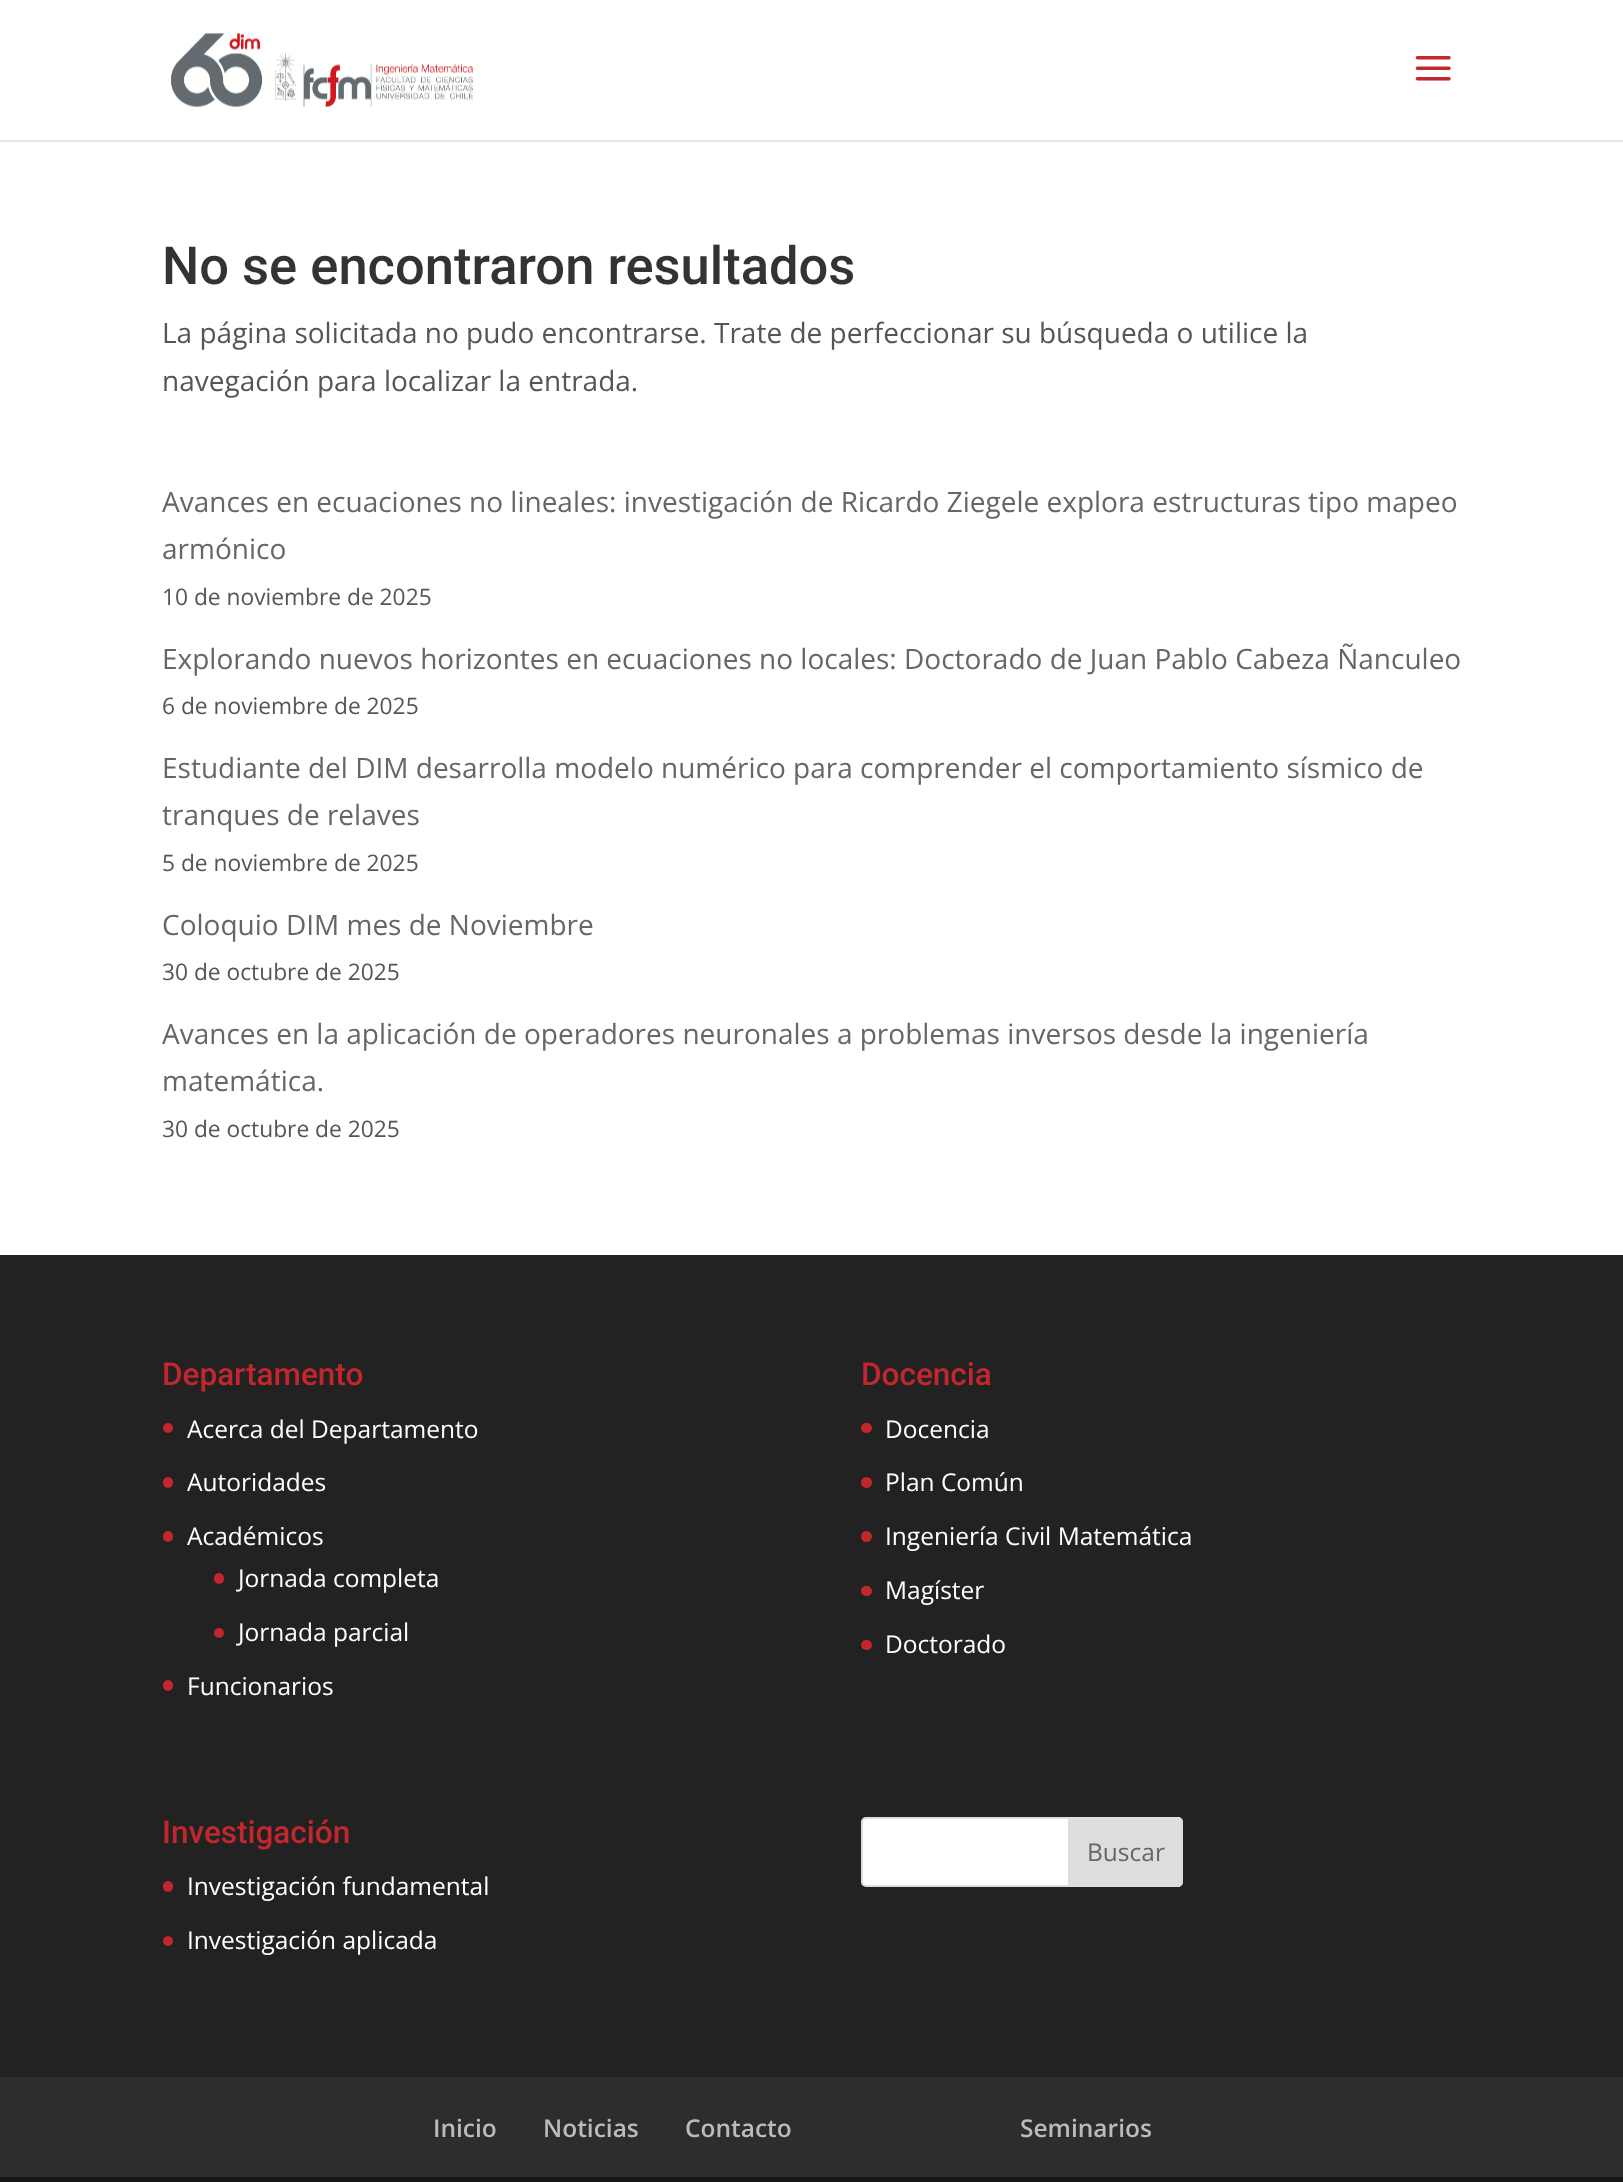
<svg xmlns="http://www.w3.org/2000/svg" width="1623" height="2182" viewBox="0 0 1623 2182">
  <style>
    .t1 { font: 500 52.5px Roboto; fill: #333; }
    .t2 { font: 28px Open Sans; fill: #555; }
    .t3 { font: 28px Open Sans; fill: #666; }
    .t4 { font: 22.75px Open Sans; fill: #555; }
    .t5 { font: 500 31.5px Roboto; fill: #c1272d; }
    .t6 { font: 24.5px Open Sans; fill: #fff; }
    .t7 { font: 24.5px Open Sans; fill: #666; }
    .t8 { font: 600 24.5px Open Sans; fill: #bbb; }
  </style>
  <rect width="100%" height="100%" fill="#fff"/>
  <rect x="0" y="140" width="1623" height="2" fill="#e6e6e6"/>
  <image x="171" y="32" width="302" height="76" href="images/1.png"/>
  <image x="1415" y="56" width="36" height="25" href="images/2.png"/>
  <text x="162" y="284" class="t1">No se encontraron resultados</text>
  <text x="162" y="343" class="t2">La página solicitada no pudo encontrarse. Trate de perfeccionar su búsqueda o utilice la</text>
  <text x="162" y="391" class="t2">navegación para localizar la entrada.</text>
  <text x="162" y="512" class="t3">Avances en ecuaciones no lineales: investigación de Ricardo Ziegele explora estructuras tipo mapeo</text>
  <text x="162" y="559" class="t3">armónico</text>
  <text x="162" y="605" class="t4">10 de noviembre de 2025</text>
  <text x="162" y="669" class="t3">Explorando nuevos horizontes en ecuaciones no locales: Doctorado de Juan Pablo Cabeza Ñanculeo</text>
  <text x="162" y="714" class="t4">6 de noviembre de 2025</text>
  <text x="162" y="778" class="t3">Estudiante del DIM desarrolla modelo numérico para comprender el comportamiento sísmico de</text>
  <text x="162" y="825" class="t3">tranques de relaves</text>
  <text x="162" y="871" class="t4">5 de noviembre de 2025</text>
  <text x="162" y="935" class="t3">Coloquio DIM mes de Noviembre</text>
  <text x="162" y="980" class="t4">30 de octubre de 2025</text>
  <text x="162" y="1044" class="t3">Avances en la aplicación de operadores neuronales a problemas inversos desde la ingeniería</text>
  <text x="162" y="1091" class="t3">matemática.</text>
  <text x="162" y="1137" class="t4">30 de octubre de 2025</text>
  <rect x="0" y="1255" width="1623" height="822" fill="#222"/>
  <text x="162" y="1385" class="t5">Departamento</text>
  <circle cx="168" cy="1428" r="5" fill="#c1272d"/>
  <text x="187" y="1438" class="t6">Acerca del Departamento</text>
  <rect x="163" y="1477" width="10" height="11" rx="5" fill="#c1272d"/>
  <text x="187" y="1491" class="t6">Autoridades</text>
  <rect x="163" y="1531" width="10" height="11" rx="5" fill="#c1272d"/>
  <text x="187" y="1545" class="t6">Académicos</text>
  <rect x="214" y="1573" width="10" height="11" rx="5" fill="#c1272d"/>
  <text x="238" y="1587" class="t6">Jornada completa</text>
  <circle cx="219" cy="1633" r="5" fill="#c1272d"/>
  <text x="238" y="1641" class="t6">Jornada parcial</text>
  <rect x="163" y="1680" width="10" height="11" rx="5" fill="#c1272d"/>
  <text x="187" y="1695" class="t6">Funcionarios</text>
  <text x="861" y="1385" class="t5">Docencia</text>
  <rect x="861" y="1423" width="11" height="10" rx="5" fill="#c1272d"/>
  <text x="885" y="1438" class="t6">Docencia</text>
  <circle cx="866.5" cy="1482.5" r="5.5" fill="#c1272d"/>
  <text x="885" y="1491" class="t6">Plan Común</text>
  <circle cx="866.5" cy="1536.5" r="5.5" fill="#c1272d"/>
  <text x="885" y="1545" class="t6">Ingeniería Civil Matemática</text>
  <rect x="861" y="1586" width="11" height="10" rx="5" fill="#c1272d"/>
  <text x="885" y="1599" class="t6">Magíster</text>
  <rect x="861" y="1640" width="11" height="10" rx="5" fill="#c1272d"/>
  <text x="885" y="1653" class="t6">Doctorado</text>
  <text x="162" y="1843" class="t5">Investigación</text>
  <rect x="163" y="1881" width="10" height="11" rx="5" fill="#c1272d"/>
  <text x="187" y="1895" class="t6">Investigación fundamental</text>
  <circle cx="168" cy="1941" r="5" fill="#c1272d"/>
  <text x="187" y="1949" class="t6">Investigación aplicada</text>
  <rect x="862" y="1818" width="320" height="68" rx="4" fill="#fff" stroke="#ddd" stroke-width="2"/>
  <path d="M1069 1818H1178C1180 1818 1182 1820 1182 1822V1882C1182 1884 1180 1886 1178 1886H1069Z" fill="#ddd" stroke="#ddd" stroke-width="2"/>
  <text x="1087" y="1861" class="t7">Buscar</text>
  <rect x="0" y="2077" width="1623" height="100" fill="#2d2d2d"/>
  <text x="433" y="2137" class="t8">Inicio</text>
  <text x="543" y="2137" class="t8">Noticias</text>
  <text x="685" y="2137" class="t8">Contacto</text>
  <text x="1020" y="2137" class="t8">Seminarios</text>
  <rect x="0" y="2177" width="1623" height="5" fill="#171717"/>
</svg>
